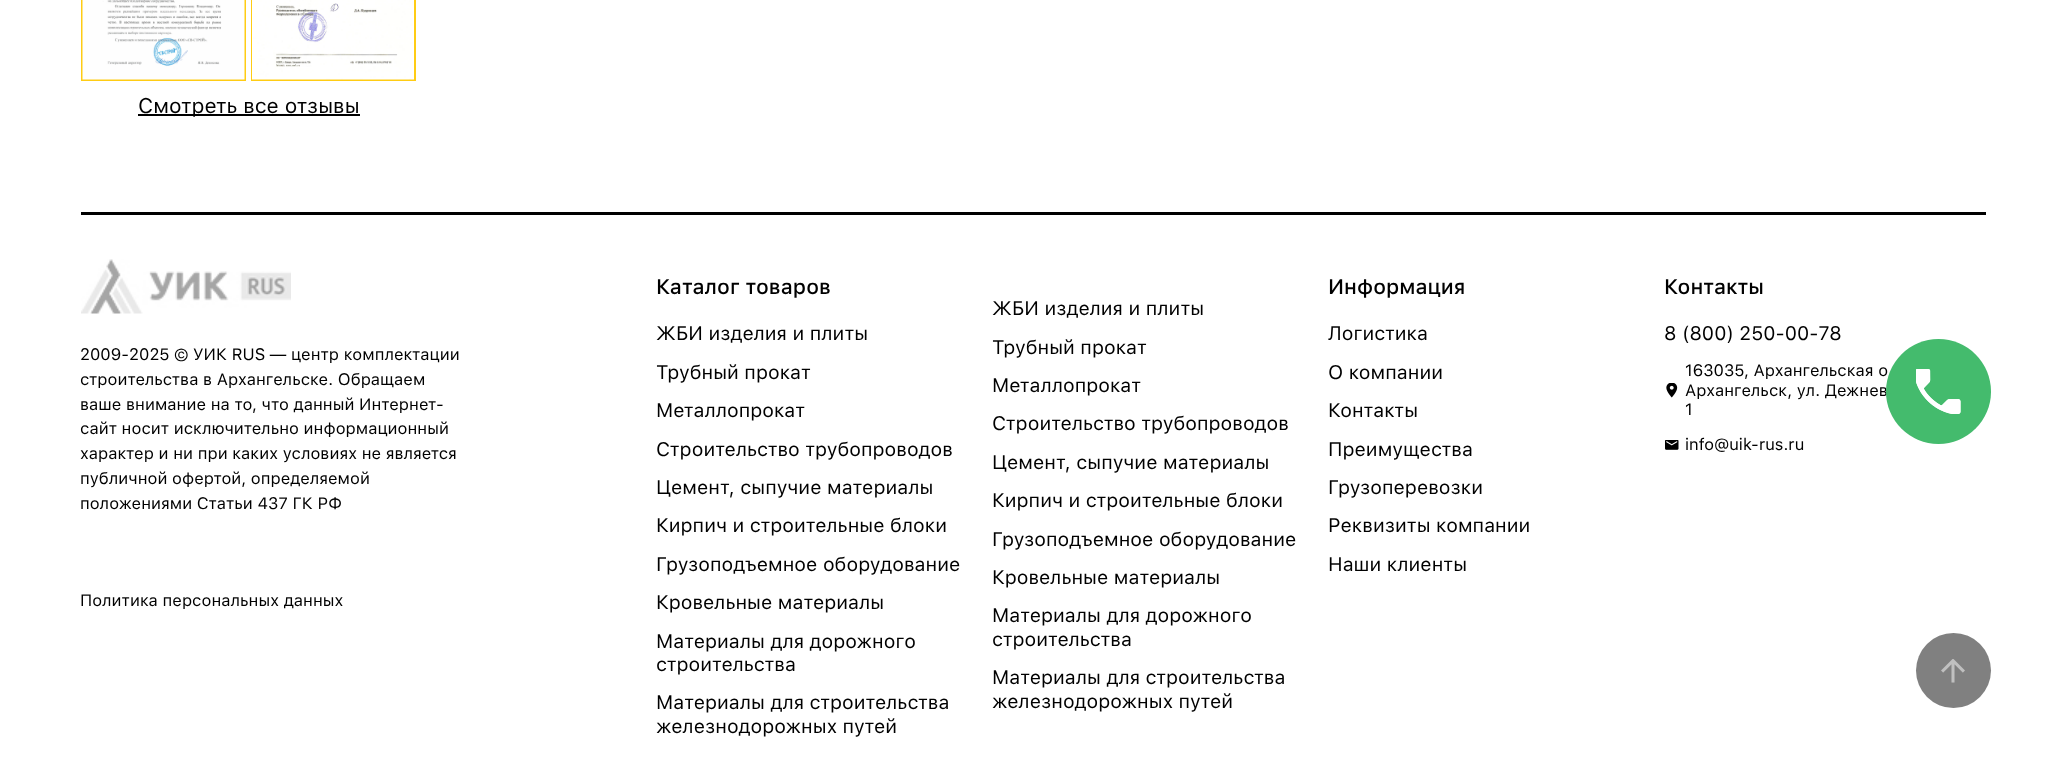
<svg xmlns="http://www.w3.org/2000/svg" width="2065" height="782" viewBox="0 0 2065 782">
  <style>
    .t1 { font: 21px SF Pro Text; fill: #000; }
    .t2 { font: 16.5px SF Pro Text; fill: #000; }
    .t3 { font: 500 21px SF Pro Text; fill: #000; }
    .t4 { font: 19.5px SF Pro Text; fill: #000; }
  </style>
  <rect width="100%" height="100%" fill="#fff"/>
  <rect x="82" y="-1" width="163" height="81" fill="none" stroke="#ffcc14" stroke-width="2"/>
  <image x="82" y="0" width="163" height="80" href="images/1.png"/>
  <rect x="252" y="-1" width="163" height="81" fill="none" stroke="#ffcc14" stroke-width="2"/>
  <image x="252" y="0" width="162" height="80" href="images/2.png"/>
  <rect x="138" y="114" width="222" height="2" fill="#000"/>
  <text x="138" y="113" class="t1">Смотреть все отзывы</text>
  <rect x="81" y="212" width="1905" height="3" fill="#000"/>
  <image x="81" y="259" width="210" height="55" href="images/3.png"/>
  <text x="80" y="360" class="t2">2009-2025 © УИК RUS — центр комплектации</text>
  <text x="80" y="385" class="t2">строительства в Архангельске. Обращаем</text>
  <text x="80" y="410" class="t2">ваше внимание на то, что данный Интернет-</text>
  <text x="80" y="434" class="t2">сайт носит исключительно информационный</text>
  <text x="80" y="459" class="t2">характер и ни при каких условиях не является</text>
  <text x="80" y="484" class="t2">публичной офертой, определяемой</text>
  <text x="80" y="509" class="t2">положениями Статьи 437 ГК РФ</text>
  <text x="80" y="606" class="t2">Политика персональных данных</text>
  <text x="656" y="294" class="t3">Каталог товаров</text>
  <text x="656" y="340" class="t4">ЖБИ изделия и плиты</text>
  <text x="656" y="379" class="t4">Трубный прокат</text>
  <text x="656" y="417" class="t4">Металлопрокат</text>
  <text x="656" y="456" class="t4">Строительство трубопроводов</text>
  <text x="656" y="494" class="t4">Цемент, сыпучие материалы</text>
  <text x="656" y="532" class="t4">Кирпич и строительные блоки</text>
  <text x="656" y="571" class="t4">Грузоподъемное оборудование</text>
  <text x="656" y="609" class="t4">Кровельные материалы</text>
  <text x="656" y="648" class="t4">Материалы для дорожного</text>
  <text x="656" y="671" class="t4">строительства</text>
  <text x="656" y="709" class="t4">Материалы для строительства</text>
  <text x="656" y="733" class="t4">железнодорожных путей</text>
  <text x="992" y="315" class="t4">ЖБИ изделия и плиты</text>
  <text x="992" y="354" class="t4">Трубный прокат</text>
  <text x="992" y="392" class="t4">Металлопрокат</text>
  <text x="992" y="430" class="t4">Строительство трубопроводов</text>
  <text x="992" y="469" class="t4">Цемент, сыпучие материалы</text>
  <text x="992" y="507" class="t4">Кирпич и строительные блоки</text>
  <text x="992" y="546" class="t4">Грузоподъемное оборудование</text>
  <text x="992" y="584" class="t4">Кровельные материалы</text>
  <text x="992" y="622" class="t4">Материалы для дорожного</text>
  <text x="992" y="646" class="t4">строительства</text>
  <text x="992" y="684" class="t4">Материалы для строительства</text>
  <text x="992" y="708" class="t4">железнодорожных путей</text>
  <text x="1328" y="294" class="t3">Информация</text>
  <text x="1328" y="340" class="t4">Логистика</text>
  <text x="1328" y="379" class="t4">О компании</text>
  <text x="1328" y="417" class="t4">Контакты</text>
  <text x="1328" y="456" class="t4">Преимущества</text>
  <text x="1328" y="494" class="t4">Грузоперевозки</text>
  <text x="1328" y="532" class="t4">Реквизиты компании</text>
  <text x="1328" y="571" class="t4">Наши клиенты</text>
  <text x="1664" y="294" class="t3">Контакты</text>
  <text x="1664" y="340" class="t4">8 (800) 250-00-78</text>
  <image x="1666" y="383" width="12" height="15" href="images/4.png"/>
  <text x="1685" y="376" class="t2">163035, Архангельская о</text>
  <text x="1685" y="396" class="t2">Архангельск, ул. Дежнев</text>
  <text x="1685" y="415" class="t2">1</text>
  <image x="1665" y="440" width="14" height="10" href="images/5.png"/>
  <text x="1685" y="450" class="t2">info@uik-rus.ru</text>
  <circle cx="1938.5" cy="391.5" r="52.5" fill="#44bb6e"/>
  <circle cx="1938.5" cy="391.5" r="52.5" fill="#44bb6e1a"/>
  <image x="1916" y="369" width="45" height="45" href="images/6.png"/>
  <image x="1916" y="369" width="45" height="45" href="images/7.png"/>
  <circle cx="1953.5" cy="670.5" r="37.5" fill="#808080"/>
  <image x="1941" y="659" width="24" height="24" href="images/8.png"/>
</svg>
